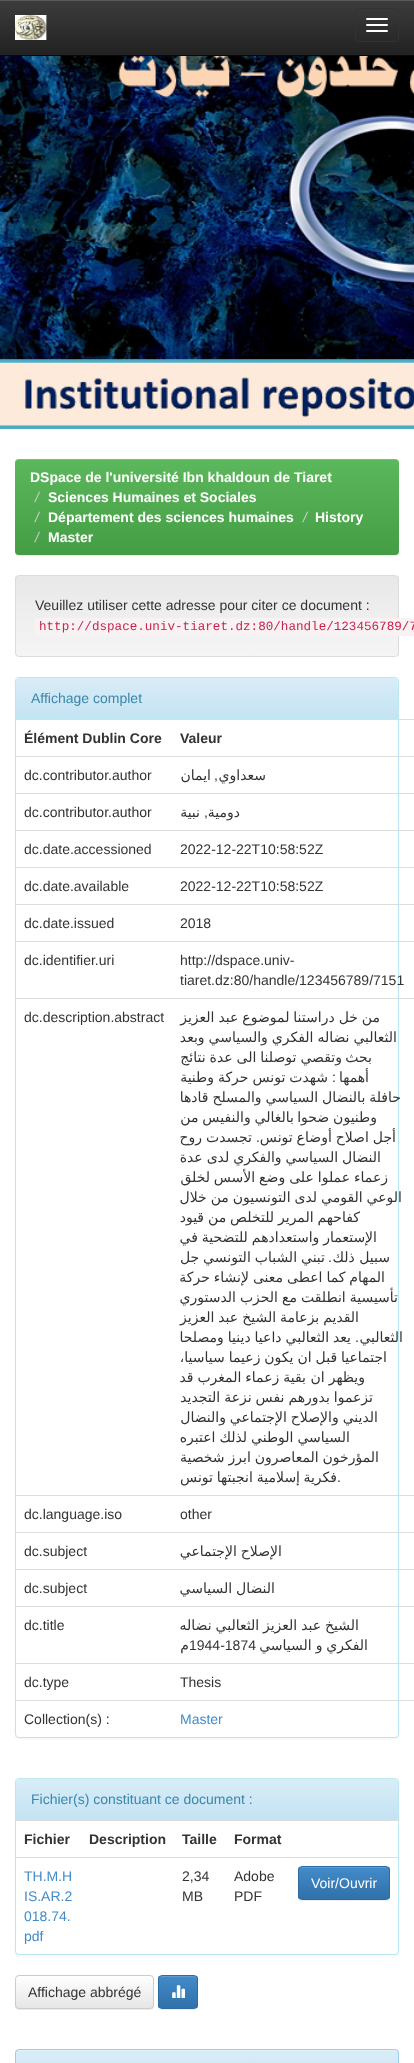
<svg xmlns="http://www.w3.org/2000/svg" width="414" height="2063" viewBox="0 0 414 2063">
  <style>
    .t1 { font: bold 14px Liberation Sans; fill: #fff; }
    .t2 { font: italic 14px Liberation Sans; fill: #ccc; }
    .t3 { font: 14px Liberation Sans; fill: #333; }
    .t4 { font: 12.6px Liberation Mono; fill: #c7254e; }
    .t5 { font: 14px Liberation Sans; fill: #3a87ad; }
    .t6 { font: bold 14px Liberation Sans; fill: #333; }
    .t7 { font: 14px DejaVu Sans; direction: rtl; fill: #333; }
    .t8 { font: 14px Liberation Sans; direction: rtl; fill: #333; }
    .t9 { font: 14px Liberation Sans; fill: #428bca; }
    .t10 { font: 14px Liberation Sans; fill: #fff; }
  </style>
  <defs>
    <linearGradient id="g1" gradientUnits="userSpaceOnUse" x1="207" y1="0" x2="207" y2="55"><stop offset="0" stop-color="#3c3c3c"/><stop offset="1" stop-color="#222"/></linearGradient>
    <linearGradient id="g2" gradientUnits="userSpaceOnUse" x1="207" y1="459" x2="207" y2="555"><stop offset="0" stop-color="#5cb85c"/><stop offset="1" stop-color="#449d44"/></linearGradient>
    <clipPath id="clip1"><rect x="15" y="575" width="384" height="82" rx="4"/></clipPath>
    <linearGradient id="g3" gradientUnits="userSpaceOnUse" x1="207" y1="576" x2="207" y2="656"><stop offset="0" stop-color="#e8e8e8"/><stop offset="1" stop-color="#f5f5f5"/></linearGradient>
    <linearGradient id="g4" gradientUnits="userSpaceOnUse" x1="207" y1="678" x2="207" y2="718"><stop offset="0" stop-color="#d9edf7"/><stop offset="1" stop-color="#c4e3f3"/></linearGradient>
    <linearGradient id="g5" gradientUnits="userSpaceOnUse" x1="207" y1="1779" x2="207" y2="1819"><stop offset="0" stop-color="#d9edf7"/><stop offset="1" stop-color="#c4e3f3"/></linearGradient>
    <clipPath id="clip2"><rect x="298" y="1866" width="92" height="34" rx="4"/></clipPath>
    <linearGradient id="g6" gradientUnits="userSpaceOnUse" x1="344" y1="1867" x2="344" y2="1899"><stop offset="0" stop-color="#428bca"/><stop offset="1" stop-color="#3071a9"/></linearGradient>
    <clipPath id="clip3"><rect x="158" y="1975" width="40" height="34" rx="4"/></clipPath>
    <linearGradient id="g7" gradientUnits="userSpaceOnUse" x1="178" y1="1976" x2="178" y2="2008"><stop offset="0" stop-color="#428bca"/><stop offset="1" stop-color="#3071a9"/></linearGradient>
    <clipPath id="clip4"><rect x="15" y="1975" width="139" height="34" rx="4"/></clipPath>
    <linearGradient id="g8" gradientUnits="userSpaceOnUse" x1="85" y1="1976" x2="85" y2="2008"><stop offset="0" stop-color="#fff"/><stop offset="1" stop-color="#e6e6e6"/></linearGradient>
    <clipPath id="clip5"><rect x="15" y="2049" width="384" height="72" rx="4"/></clipPath>
    <linearGradient id="g9" gradientUnits="userSpaceOnUse" x1="207" y1="2050" x2="207" y2="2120"><stop offset="0" stop-color="#d9edf7"/><stop offset="1" stop-color="#b9def0"/></linearGradient>
  </defs>
  <rect width="100%" height="100%" fill="#fff"/>
  <image x="0" y="56" width="414" height="373" href="images/2.png"/>
  <rect x="0" y="1" width="414" height="56" fill="#00000012" filter="blur(2.5px)"/>
  <rect x="0" y="1" width="414" height="54" fill="url(#g1)"/>
  <rect x="0" y="0" width="414" height="1" fill="#595959"/>
  <rect x="0" y="55" width="414" height="1" fill="#080808"/>
  <rect x="355.5" y="8.5" width="43" height="33" rx="3.5" fill="none" stroke="#333"/>
  <rect x="366" y="18" width="22" height="2" rx="1" fill="#fff"/>
  <rect x="366" y="24" width="22" height="2" rx="1" fill="#fff"/>
  <rect x="366" y="30" width="22" height="2" rx="1" fill="#fff"/>
  <image x="15" y="15" width="32" height="25" href="images/1.png"/>
  <rect x="15" y="460" width="384" height="96" rx="4" fill="#00000012" filter="blur(0.5px)"/>
  <rect x="15" y="459" width="384" height="96" rx="4" fill="url(#g2)"/>
  <path d="M19 460H395C397 460 399 462 399 464C399 461 398 459 395 459H19C16 459 15 461 15 464C15 462 17 460 19 460Z" fill="#ffffff26"/>
  <text x="30" y="482" class="t1">DSpace de l'université Ibn khaldoun de Tiaret</text>
  <text x="48" y="502" class="t1">Sciences Humaines et Sociales</text>
  <text x="35" y="502" class="t2">/</text>
  <text x="315" y="522" class="t1">History</text>
  <text x="303" y="522" class="t2">/</text>
  <text x="48" y="522" class="t1">Département des sciences humaines</text>
  <text x="35" y="522" class="t2">/</text>
  <text x="48" y="542" class="t1">Master</text>
  <text x="35" y="542" class="t2">/</text>
  <g clip-path="url(#clip1)">
    <rect x="15" y="576" width="384" height="80" fill="url(#g3)"/>
  </g>
  <rect x="15.5" y="575.5" width="383" height="81" rx="3.5" fill="none" stroke="#dcdcdc"/>
  <text x="35" y="610" class="t3">Veuillez utiliser cette adresse pour citer ce document :</text>
  <rect x="35" y="618" width="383" height="18" rx="4" fill="#f9f2f4"/>
  <text x="39" y="630" class="t4">http://dspace.univ-tiaret.dz:80/handle/123456789/7</text>
  <rect x="15" y="678" width="384" height="1061" rx="4" fill="#0000000d" filter="blur(1px)"/>
  <rect x="15.5" y="677.5" width="383" height="1060" rx="3.5" fill="#fff" stroke="#bce8f1"/>
  <path d="M19 678H395C396.5 678 398 679.5 398 681V718H16V681C16 679.5 17.5 678 19 678Z" fill="url(#g4)"/>
  <rect x="16" y="718" width="382" height="1" fill="#bce8f1"/>
  <text x="31" y="703" class="t5">Affichage complet</text>
  <rect x="16" y="719" width="398" height="1" fill="#ddd"/>
  <text x="180" y="743" class="t6">Valeur</text>
  <text x="24" y="743" class="t6">Élément Dublin Core</text>
  <rect x="16" y="756" width="398" height="1" fill="#ddd"/>
  <text x="266" y="780" class="t7">سعداوي</text>
  <text x="218" y="780" class="t8">,</text>
  <text x="211" y="780" class="t7">ايمان</text>
  <text x="24" y="780" class="t3">dc.contributor.author</text>
  <rect x="16" y="793" width="398" height="1" fill="#ddd"/>
  <text x="240" y="817" class="t7">دومية</text>
  <text x="208" y="817" class="t8">,</text>
  <text x="200" y="817" class="t7">نبية</text>
  <text x="24" y="817" class="t3">dc.contributor.author</text>
  <rect x="16" y="830" width="398" height="1" fill="#ddd"/>
  <text x="180" y="854" class="t3">2022-12-22T10:58:52Z</text>
  <text x="24" y="854" class="t3">dc.date.accessioned</text>
  <rect x="16" y="867" width="398" height="1" fill="#ddd"/>
  <text x="180" y="891" class="t3">2022-12-22T10:58:52Z</text>
  <text x="24" y="891" class="t3">dc.date.available</text>
  <rect x="16" y="904" width="398" height="1" fill="#ddd"/>
  <text x="180" y="928" class="t3">2018</text>
  <text x="24" y="928" class="t3">dc.date.issued</text>
  <rect x="16" y="941" width="398" height="1" fill="#ddd"/>
  <text x="180" y="965" class="t3">http://dspace.univ-</text>
  <text x="180" y="985" class="t3">tiaret.dz:80/handle/123456789/7151</text>
  <text x="24" y="965" class="t3">dc.identifier.uri</text>
  <rect x="16" y="998" width="398" height="1" fill="#ddd"/>
  <text x="380" y="1022" word-spacing="-0.5" class="t7">من خل دراستنا لموضوع عبد العزيز</text>
  <text x="397" y="1042" word-spacing="-0.5" class="t7">الثعالبي نضاله الفكري والسياسي وبعد</text>
  <text x="372" y="1062" class="t7">بحث</text>
  <text x="342" y="1062" word-spacing="-0.5" class="t7">وتقصي توصلنا الى عدة نتائج</text>
  <text x="369" y="1082" class="t7">أهمها</text>
  <text x="336" y="1082" class="t8">:</text>
  <text x="328" y="1082" word-spacing="-0.5" class="t7">شهدت تونس حركة وطنية</text>
  <text x="401" y="1102" word-spacing="-0.5" class="t7">حافلة بالنضال السياسي والمسلح قادها</text>
  <text x="377" y="1122" word-spacing="-0.5" class="t7">وطنيون ضحوا</text>
  <text x="294" y="1122" word-spacing="-0.5" class="t7">بالغالي والنفيس من</text>
  <text x="396" y="1142" word-spacing="-0.5" class="t7">أجل اصلاح أوضاع تونس</text>
  <text x="260" y="1142" class="t8">.</text>
  <text x="252" y="1142" word-spacing="-0.5" class="t7">تجسدت روح</text>
  <text x="381" y="1162" word-spacing="-0.5" class="t7">النضال السياسي والفكري لدى عدة</text>
  <text x="388" y="1182" word-spacing="-0.5" class="t7">زعماء عملوا على وضع الأسس</text>
  <text x="210" y="1182" class="t7">لخلق</text>
  <text x="402" y="1202" word-spacing="-0.5" class="t7">الوعي القومي لدى التونسيون من خلال</text>
  <text x="360" y="1222" word-spacing="-0.5" class="t7">كفاحهم المرير للتخلص من قيود</text>
  <text x="377" y="1242" word-spacing="-0.5" class="t7">الإستعمار واستعدادهم للتضحية في</text>
  <text x="390" y="1262" class="t7">سبيل ذلك</text>
  <text x="332" y="1262" class="t8">.</text>
  <text x="325" y="1262" word-spacing="-0.5" class="t7">تبني الشباب التونسي جل</text>
  <text x="385" y="1282" word-spacing="-0.5" class="t7">المهام كما اعطى معنى لإنشاء حركة</text>
  <text x="398" y="1302" word-spacing="-0.5" class="t7">تأسيسية انطلقت مع</text>
  <text x="278" y="1302" word-spacing="-0.5" class="t7">الحزب الدستوري</text>
  <text x="359" y="1322" word-spacing="-0.5" class="t7">القديم بزعامة الشيخ عبد العزيز</text>
  <text x="403" y="1342" class="t7">الثعالبي</text>
  <text x="359" y="1342" class="t8">.</text>
  <text x="351" y="1342" word-spacing="-0.5" class="t7">يعد الثعالبي داعيا دينيا ومصلحا</text>
  <text x="387" y="1362" word-spacing="-0.5" class="t7">اجتماعيا قبل ان يكون زعيما سياسيا،</text>
  <text x="365" y="1382" word-spacing="-0.5" class="t7">ويظهر ان</text>
  <text x="306" y="1382" word-spacing="-0.5" class="t7">بقية زعماء المغرب قد</text>
  <text x="373" y="1402" word-spacing="-0.5" class="t7">تزعموا بدورهم نفس نزعة التجديد</text>
  <text x="378" y="1422" word-spacing="-0.5" class="t7">الديني والإصلاح الإجتماعي</text>
  <text x="226" y="1422" class="t7">والنضال</text>
  <text x="350" y="1442" word-spacing="-0.5" class="t7">السياسي الوطني لذلك اعتبره</text>
  <text x="379" y="1462" word-spacing="-0.5" class="t7">المؤرخون المعاصرون ابرز شخصية</text>
  <text x="337" y="1482" class="t3">.</text>
  <text x="337" y="1482" class="t7">فكرية</text>
  <text x="300" y="1482" word-spacing="-0.5" class="t7">إسلامية انجبتها تونس</text>
  <text x="24" y="1022" class="t3">dc.description.abstract</text>
  <rect x="16" y="1495" width="398" height="1" fill="#ddd"/>
  <text x="180" y="1519" class="t3">other</text>
  <text x="24" y="1519" class="t3">dc.language.iso</text>
  <rect x="16" y="1532" width="398" height="1" fill="#ddd"/>
  <text x="282" y="1556" word-spacing="-0.5" class="t7">الإصلاح الإجتماعي</text>
  <text x="24" y="1556" class="t3">dc.subject</text>
  <rect x="16" y="1569" width="398" height="1" fill="#ddd"/>
  <text x="275" y="1593" word-spacing="-0.5" class="t7">النضال السياسي</text>
  <text x="24" y="1593" class="t3">dc.subject</text>
  <rect x="16" y="1606" width="398" height="1" fill="#ddd"/>
  <text x="359" y="1630" word-spacing="-0.5" class="t7">الشيخ عبد العزيز الثعالبي نضاله</text>
  <text x="368" y="1650" word-spacing="-0.5" class="t7">الفكري و السياسي</text>
  <text x="189" y="1650" class="t3">1944-1874</text>
  <text x="189" y="1650" class="t7">م</text>
  <text x="24" y="1630" class="t3">dc.title</text>
  <rect x="16" y="1663" width="398" height="1" fill="#ddd"/>
  <text x="180" y="1687" class="t3">Thesis</text>
  <text x="24" y="1687" class="t3">dc.type</text>
  <rect x="16" y="1700" width="398" height="1" fill="#ddd"/>
  <text x="180" y="1724" class="t9">Master</text>
  <text x="24" y="1724" class="t3">Collection(s) :</text>
  <rect x="15" y="1779" width="384" height="177" rx="4" fill="#0000000d" filter="blur(1px)"/>
  <rect x="15.5" y="1778.5" width="383" height="176" rx="3.5" fill="#fff" stroke="#bce8f1"/>
  <path d="M19 1779H395C396.5 1779 398 1780.5 398 1782V1819H16V1782C16 1780.5 17.5 1779 19 1779Z" fill="url(#g5)"/>
  <rect x="16" y="1819" width="382" height="1" fill="#bce8f1"/>
  <text x="31" y="1804" class="t5">Fichier(s) constituant ce document :</text>
  <rect x="16" y="1820" width="383" height="1" fill="#ddd"/>
  <text x="234" y="1844" class="t6">Format</text>
  <text x="182" y="1844" class="t6">Taille</text>
  <text x="89" y="1844" class="t6">Description</text>
  <text x="24" y="1844" class="t6">Fichier</text>
  <rect x="16" y="1857" width="383" height="1" fill="#ddd"/>
  <rect x="298" y="1867" width="92" height="34" rx="4" fill="#00000012" filter="blur(0.5px)"/>
  <g clip-path="url(#clip2)">
    <rect x="298" y="1867" width="92" height="32" fill="url(#g6)"/>
  </g>
  <path d="M302 1868H386C388 1868 389 1869 389 1871C389 1863 376 1867 372 1867H316C312 1867 299 1863 299 1871C299 1869 300 1868 302 1868Z" fill="#5e9cd1"/>
  <rect x="298.5" y="1866.5" width="91" height="33" rx="3.5" fill="none" stroke="#2d6ca2"/>
  <text x="311" y="1888" class="t10">Voir/Ouvrir</text>
  <text x="234" y="1881" class="t3">Adobe</text>
  <text x="234" y="1901" class="t3">PDF</text>
  <text x="182" y="1881" class="t3">2,34</text>
  <text x="182" y="1901" class="t3">MB</text>
  <text x="24" y="1881" class="t9">TH.M.H</text>
  <text x="24" y="1901" class="t9">IS.AR.2</text>
  <text x="24" y="1921" class="t9">018.74.</text>
  <text x="24" y="1941" class="t9">pdf</text>
  <rect x="158" y="1976" width="40" height="34" rx="4" fill="#00000012" filter="blur(0.5px)"/>
  <g clip-path="url(#clip3)">
    <rect x="158" y="1976" width="40" height="32" fill="url(#g7)"/>
  </g>
  <path d="M162 1977H189C194.5 1977 196.5 1977.5 197 1979.5C197 1974.5 192.5 1976 188.5 1976H167.5C164 1976 159 1975 159 1979.5C159.5 1978 160.5 1977 162 1977Z" fill="#5e9cd1"/>
  <rect x="158.5" y="1975.5" width="39" height="33" rx="3.5" fill="none" stroke="#2d6ca2"/>
  <image x="172" y="1985" width="13" height="13" href="images/3.png"/>
  <rect x="15" y="1976" width="139" height="34" rx="4" fill="#00000012" filter="blur(0.5px)"/>
  <g clip-path="url(#clip4)">
    <rect x="15" y="1976" width="139" height="32" fill="url(#g8)"/>
  </g>
  <rect x="15.5" y="1975.5" width="138" height="33" rx="3.5" fill="none" stroke="#ccc"/>
  <text x="28" y="1997" class="t3">Affichage abbrégé</text>
  <g clip-path="url(#clip5)">
    <rect x="15" y="2050" width="384" height="13" fill="url(#g9)"/>
  </g>
  <path d="M19 2051H395C397 2051 398 2052 398 2054C398 2052 397 2050 395 2050H19L17 2051L16 2054C16 2052 17 2051 19 2051Z" fill="#e3f2f9"/>
  <rect x="15.5" y="2049.5" width="383" height="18" rx="3.5" fill="none" stroke="#9acfea"/>
</svg>
